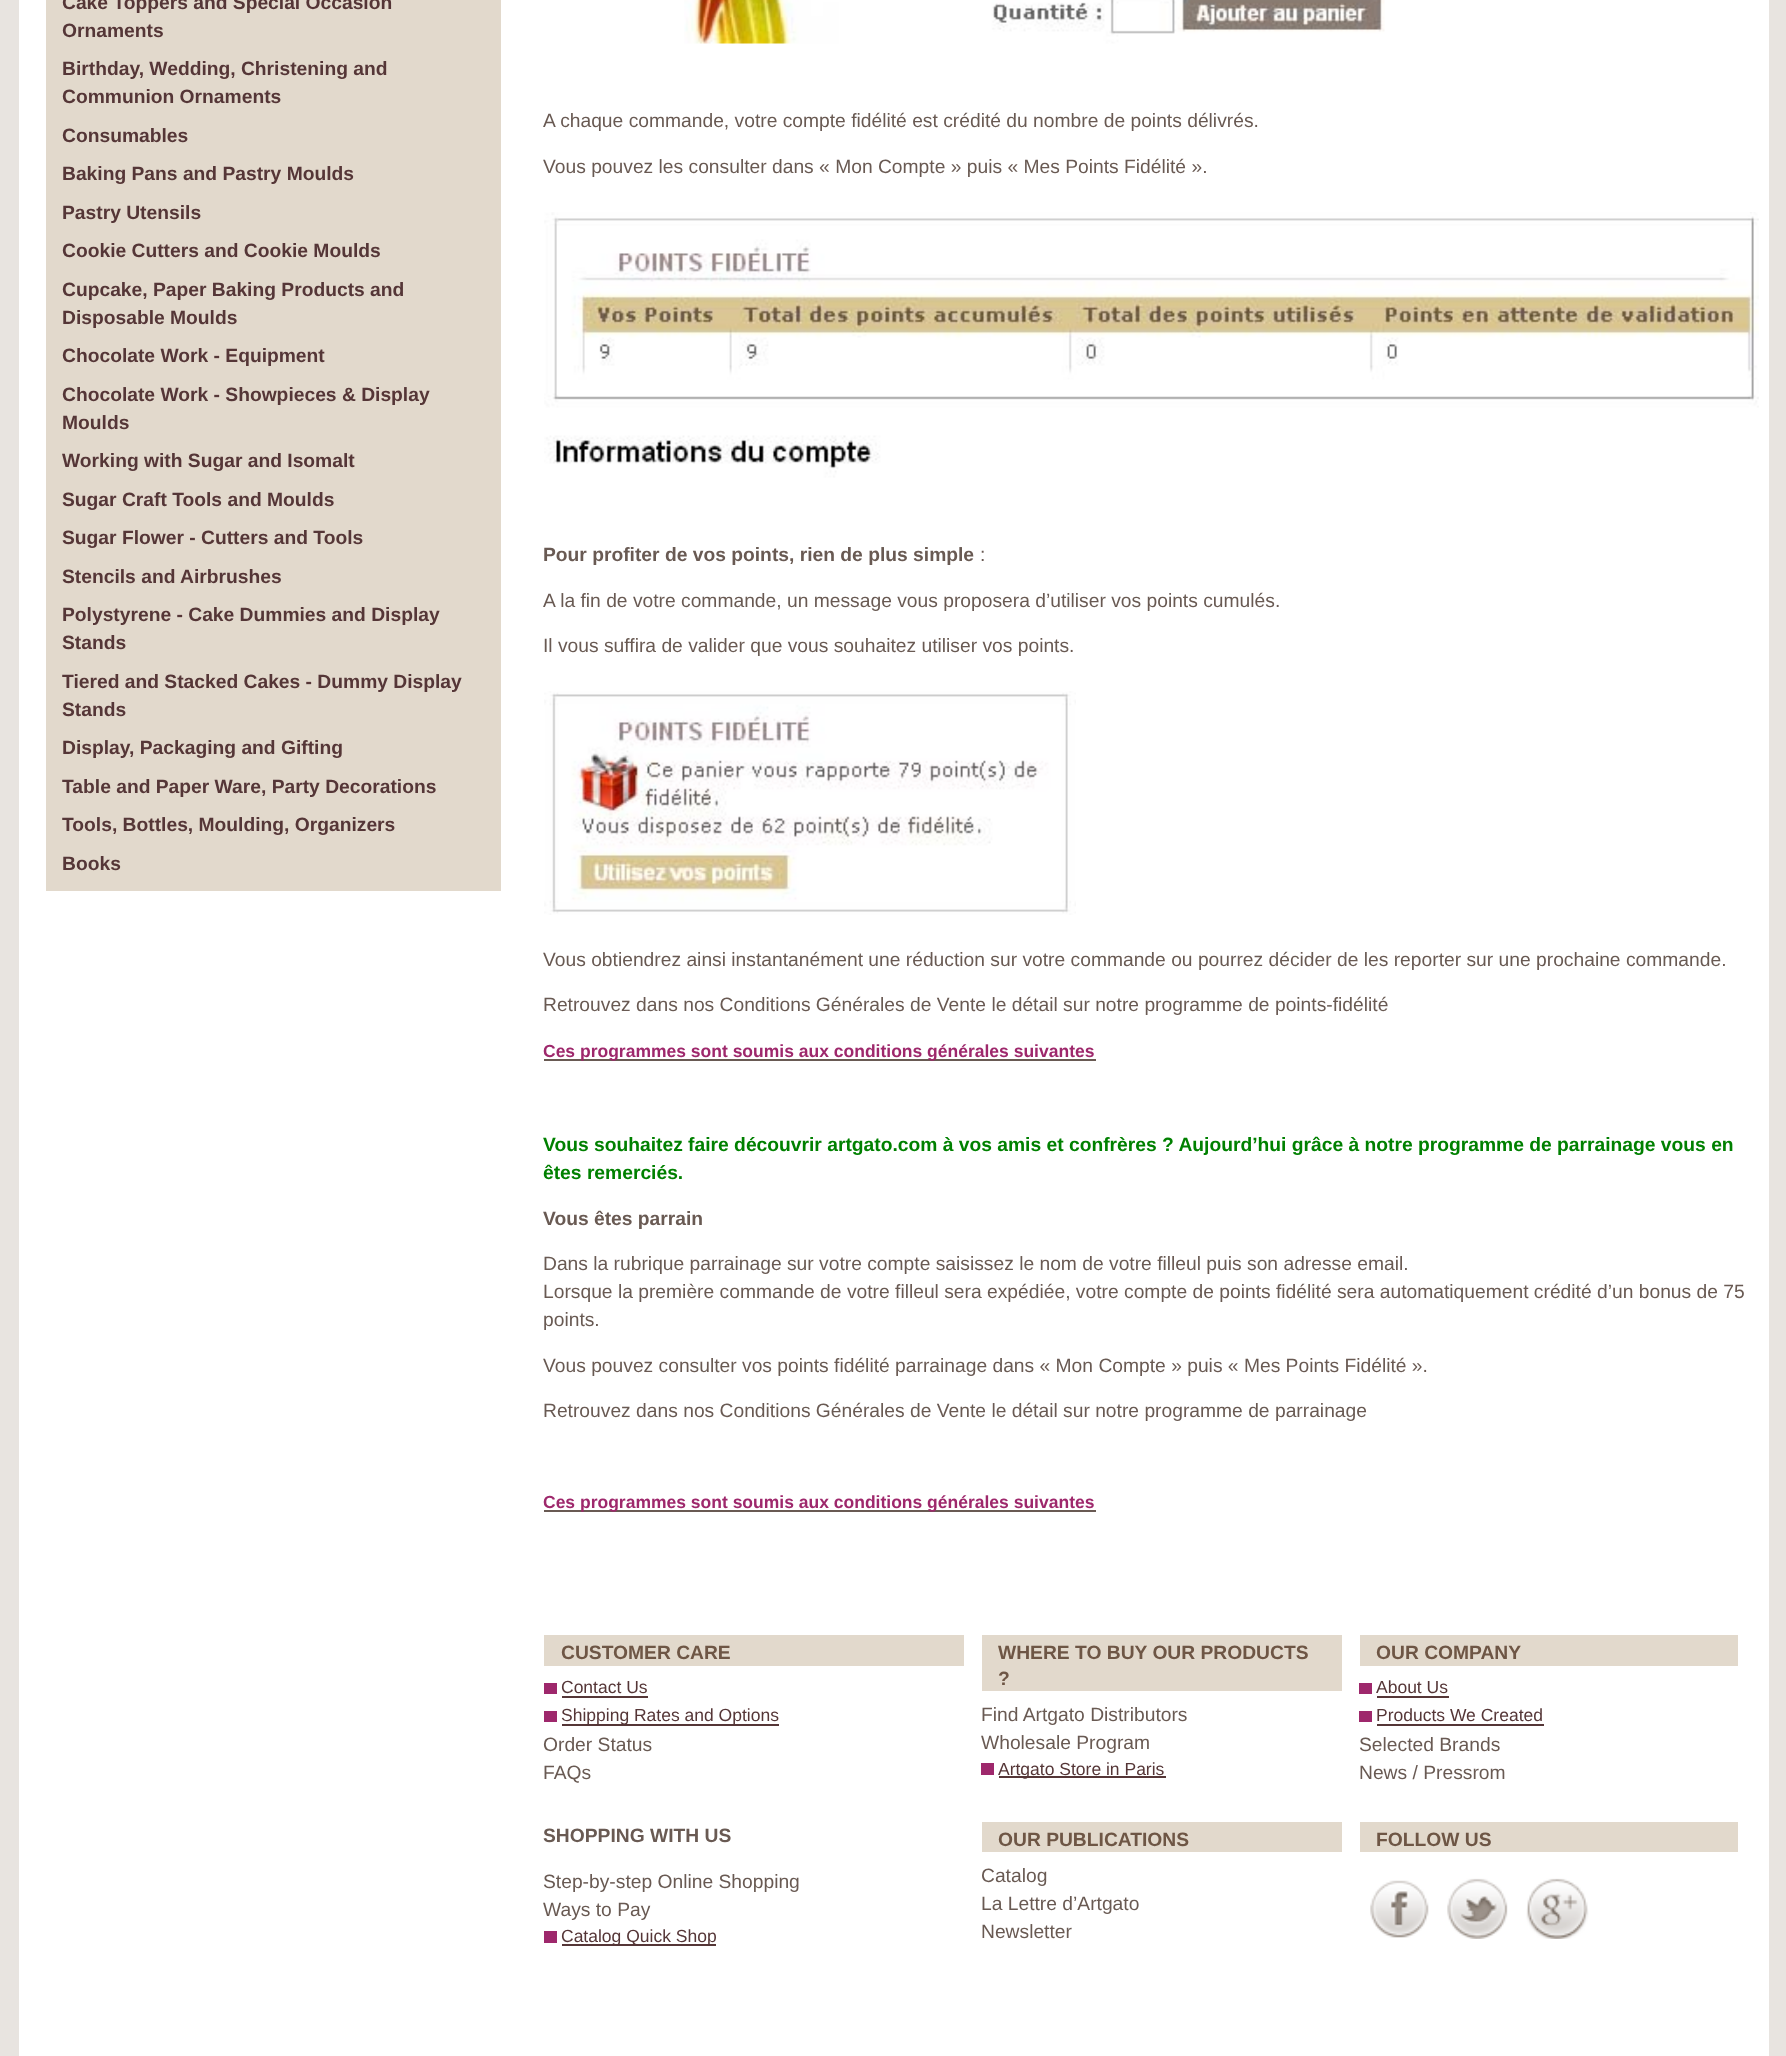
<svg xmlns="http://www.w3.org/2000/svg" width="1786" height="2056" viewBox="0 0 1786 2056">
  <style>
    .t1 { font: bold 19.25px Liberation Sans; fill: #553637; }
    .t2 { font: 19.25px Liberation Sans; fill: #695a53; }
    .t3 { font: bold 19.25px Liberation Sans; fill: #695a53; }
    .t4 { font: bold 17.5px Liberation Sans; fill: #9e286c; }
    .t5 { font: bold 19.25px Liberation Sans; fill: #008000; }
    .t6 { font: bold 19.25px Liberation Sans; fill: #6e5645; }
    .t7 { font: 17.5px Liberation Sans; fill: #553637; }
  </style>
  <rect width="100%" height="100%" fill="#e8e4e0"/>
  <rect x="19" y="0" width="1750" height="2056" fill="#fff"/>
  <rect x="46" y="0" width="455" height="891" fill="#e2d9cc"/>
  <text x="62" y="9" class="t1">Cake Toppers and Special Occasion</text>
  <text x="62" y="37" class="t1">Ornaments</text>
  <text x="62" y="75" class="t1">Birthday, Wedding, Christening and</text>
  <text x="62" y="103" class="t1">Communion Ornaments</text>
  <text x="62" y="142" class="t1">Consumables</text>
  <text x="62" y="180" class="t1">Baking Pans and Pastry Moulds</text>
  <text x="62" y="219" class="t1">Pastry Utensils</text>
  <text x="62" y="257" class="t1">Cookie Cutters and Cookie Moulds</text>
  <text x="62" y="296" class="t1">Cupcake, Paper Baking Products and</text>
  <text x="62" y="324" class="t1">Disposable Moulds</text>
  <text x="62" y="362" class="t1">Chocolate Work - Equipment</text>
  <text x="62" y="401" class="t1">Chocolate Work - Showpieces &amp; Display</text>
  <text x="62" y="429" class="t1">Moulds</text>
  <text x="62" y="467" class="t1">Working with Sugar and Isomalt</text>
  <text x="62" y="506" class="t1">Sugar Craft Tools and Moulds</text>
  <text x="62" y="544" class="t1">Sugar Flower - Cutters and Tools</text>
  <text x="62" y="583" class="t1">Stencils and Airbrushes</text>
  <text x="62" y="621" class="t1">Polystyrene - Cake Dummies and Display</text>
  <text x="62" y="649" class="t1">Stands</text>
  <text x="62" y="688" class="t1">Tiered and Stacked Cakes - Dummy Display</text>
  <text x="62" y="716" class="t1">Stands</text>
  <text x="62" y="754" class="t1">Display, Packaging and Gifting</text>
  <text x="62" y="793" class="t1">Table and Paper Ware, Party Decorations</text>
  <text x="62" y="831" class="t1">Tools, Bottles, Moulding, Organizers</text>
  <text x="62" y="870" class="t1">Books</text>
  <image x="684" y="0" width="701" height="44" href="images/1.png"/>
  <text x="543" y="127" class="t2">A chaque commande, votre compte fidélité est crédité du nombre de points délivrés.</text>
  <text x="543" y="173" class="t2">Vous pouvez les consulter dans « Mon Compte » puis « Mes Points Fidélité ».</text>
  <image x="544" y="212" width="1215" height="266" href="images/2.png"/>
  <text x="543" y="561" class="t3">Pour profiter de vos points, rien de plus simple</text>
  <text x="980" y="561" class="t2">:</text>
  <text x="543" y="607" class="t2">A la fin de votre commande, un message vous proposera d’utiliser vos points cumulés.</text>
  <text x="543" y="652" class="t2">Il vous suffira de valider que vous souhaitez utiliser vos points.</text>
  <image x="544" y="691" width="532" height="224" href="images/3.png"/>
  <text x="543" y="966" class="t2">Vous obtiendrez ainsi instantanément une réduction sur votre commande ou pourrez décider de les reporter sur une prochaine commande.</text>
  <text x="543" y="1011" class="t2">Retrouvez dans nos Conditions Générales de Vente le détail sur notre programme de points-fidélité</text>
  <rect x="544" y="1059" width="552" height="2" fill="#695a53"/>
  <text x="543" y="1057" class="t4">Ces programmes sont soumis aux conditions générales suivantes</text>
  <text x="543" y="1151" class="t5">Vous souhaitez faire découvrir artgato.com à vos amis et confrères ? Aujourd’hui grâce à notre programme de parrainage vous en</text>
  <text x="543" y="1179" class="t5">êtes remerciés.</text>
  <text x="543" y="1225" class="t3">Vous êtes parrain</text>
  <text x="543" y="1270" class="t2">Dans la rubrique parrainage sur votre compte saisissez le nom de votre filleul puis son adresse email.</text>
  <text x="543" y="1298" class="t2">Lorsque la première commande de votre filleul sera expédiée, votre compte de points fidélité sera automatiquement crédité d’un bonus de 75</text>
  <text x="543" y="1326" class="t2">points.</text>
  <text x="543" y="1372" class="t2">Vous pouvez consulter vos points fidélité parrainage dans « Mon Compte » puis « Mes Points Fidélité ».</text>
  <text x="543" y="1417" class="t2">Retrouvez dans nos Conditions Générales de Vente le détail sur notre programme de parrainage</text>
  <rect x="544" y="1510" width="552" height="2" fill="#695a53"/>
  <text x="543" y="1508" class="t4">Ces programmes sont soumis aux conditions générales suivantes</text>
  <rect x="544" y="1635" width="420" height="31" fill="#e2d9cc"/>
  <text x="561" y="1659" class="t6">CUSTOMER CARE</text>
  <rect x="544" y="1683" width="13" height="11" fill="#9e286c"/>
  <text x="561" y="1693" class="t7">Contact Us</text>
  <rect x="562" y="1696" width="86" height="2" fill="#553637"/>
  <rect x="544" y="1711" width="13" height="11" fill="#9e286c"/>
  <rect x="562" y="1724" width="217" height="2" fill="#553637"/>
  <text x="561" y="1721" class="t7">Shipping Rates and Options</text>
  <text x="543" y="1751" class="t2">Order Status</text>
  <text x="543" y="1779" class="t2">FAQs</text>
  <rect x="982" y="1635" width="360" height="56" fill="#e2d9cc"/>
  <text x="998" y="1659" class="t6">WHERE TO BUY OUR PRODUCTS</text>
  <text x="998" y="1685" class="t6">?</text>
  <text x="981" y="1721" class="t2">Find Artgato Distributors</text>
  <text x="981" y="1749" class="t2">Wholesale Program</text>
  <rect x="981" y="1763" width="13" height="12" fill="#9e286c"/>
  <rect x="999" y="1776" width="167" height="2" fill="#553637"/>
  <text x="998" y="1775" class="t7">Artgato Store in Paris</text>
  <rect x="1360" y="1635" width="378" height="31" fill="#e2d9cc"/>
  <text x="1376" y="1659" class="t6">OUR COMPANY</text>
  <rect x="1359" y="1683" width="13" height="11" fill="#9e286c"/>
  <text x="1376" y="1693" class="t7">About Us</text>
  <rect x="1377" y="1696" width="72" height="2" fill="#553637"/>
  <rect x="1359" y="1711" width="13" height="11" fill="#9e286c"/>
  <text x="1376" y="1721" class="t7">Products We Created</text>
  <rect x="1377" y="1724" width="167" height="2" fill="#553637"/>
  <text x="1359" y="1751" class="t2">Selected Brands</text>
  <text x="1359" y="1779" class="t2">News / Pressrom</text>
  <text x="543" y="1842" class="t3">SHOPPING WITH US</text>
  <text x="543" y="1888" class="t2">Step-by-step Online Shopping</text>
  <text x="543" y="1916" class="t2">Ways to Pay</text>
  <rect x="544" y="1931" width="13" height="12" fill="#9e286c"/>
  <rect x="562" y="1944" width="154" height="2" fill="#553637"/>
  <text x="561" y="1942" class="t7">Catalog Quick Shop</text>
  <rect x="982" y="1822" width="360" height="30" fill="#e2d9cc"/>
  <text x="998" y="1846" class="t6">OUR PUBLICATIONS</text>
  <text x="981" y="1882" class="t2">Catalog</text>
  <text x="981" y="1910" class="t2">La Lettre d’Artgato</text>
  <text x="981" y="1938" class="t2">Newsletter</text>
  <rect x="1360" y="1822" width="378" height="30" fill="#e2d9cc"/>
  <text x="1376" y="1846" class="t6">FOLLOW US</text>
  <image x="1370" y="1880" width="59" height="58" href="images/4.png"/>
  <image x="1447" y="1878" width="61" height="61" href="images/5.png"/>
  <image x="1526" y="1878" width="63" height="61" href="images/6.png"/>
</svg>
